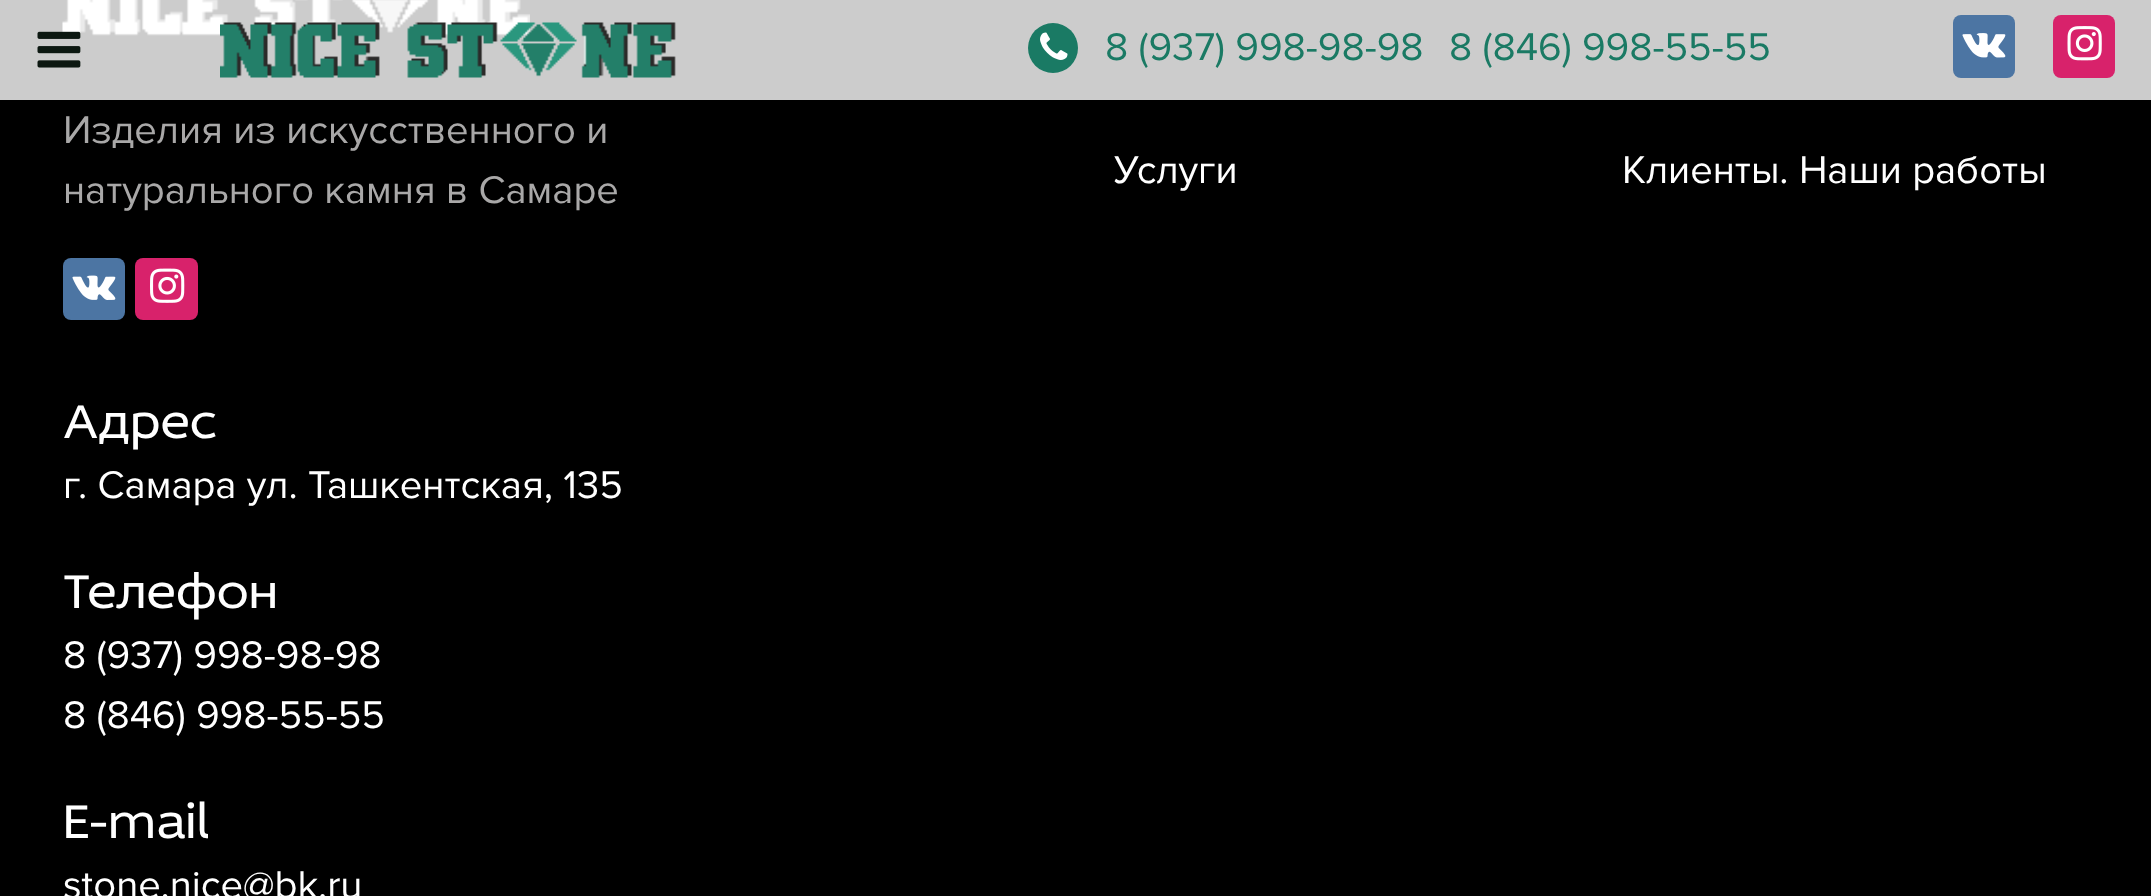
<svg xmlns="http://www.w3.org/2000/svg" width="2151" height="896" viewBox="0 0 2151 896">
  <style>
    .t1 { font: 40px Proxima Nova; fill: #1a7a64; }
    .t2 { font: 40px Proxima Nova; fill: #a9a8a8; }
    .t3 { font: 40px Proxima Nova; fill: #fff; }
    .t4 { font: 50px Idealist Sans; fill: #fff; }
  </style>
  <rect width="100%" height="100%" fill="#000"/>
  <image x="62" y="0" width="468" height="36" href="images/6.png"/>
  <rect x="0" y="0" width="2151" height="100" fill="#ffffffcc"/>
  <image x="37" y="31" width="44" height="37" href="images/1.png"/>
  <image x="220" y="22" width="456" height="56" href="images/2.png"/>
  <circle cx="1053" cy="48" r="25" fill="#1a7a64"/>
  <image x="1040" y="32" width="28" height="28" href="images/3.png"/>
  <text x="1105" y="60" class="t1">8 (937) 998-98-98</text>
  <text x="1449" y="60" class="t1">8 (846) 998-55-55</text>
  <rect x="1953" y="15" width="62" height="63" rx="8" fill="#4c75a3"/>
  <image x="1962" y="33" width="44" height="25" href="images/4.png"/>
  <rect x="2053" y="15" width="62" height="63" rx="8" fill="#d8226b"/>
  <image x="2067" y="26" width="35" height="35" href="images/5.png"/>
  <text x="63" y="143" class="t2">Изделия из искусственного и</text>
  <text x="63" y="203" class="t2">натурального камня в Самаре</text>
  <rect x="63" y="258" width="62" height="62" rx="8" fill="#4c75a3"/>
  <image x="72" y="275" width="44" height="25" href="images/7.png"/>
  <rect x="135" y="258" width="63" height="62" rx="8" fill="#d8226b"/>
  <image x="150" y="268" width="35" height="35" href="images/8.png"/>
  <text x="1114" y="183" class="t3">Услуги</text>
  <text x="1622" y="183" class="t3">Клиенты. Наши работы</text>
  <text x="63" y="438" class="t4">Адрес</text>
  <text x="63" y="498" class="t3">г. Самара ул. Ташкентская, 135</text>
  <text x="63" y="608" class="t4">Телефон</text>
  <text x="63" y="668" class="t3">8 (937) 998-98-98</text>
  <text x="63" y="728" class="t3">8 (846) 998-55-55</text>
  <text x="63" y="838" class="t4">E-mail</text>
  <text x="63" y="898" class="t3">stone.nice@bk.ru</text>
</svg>
